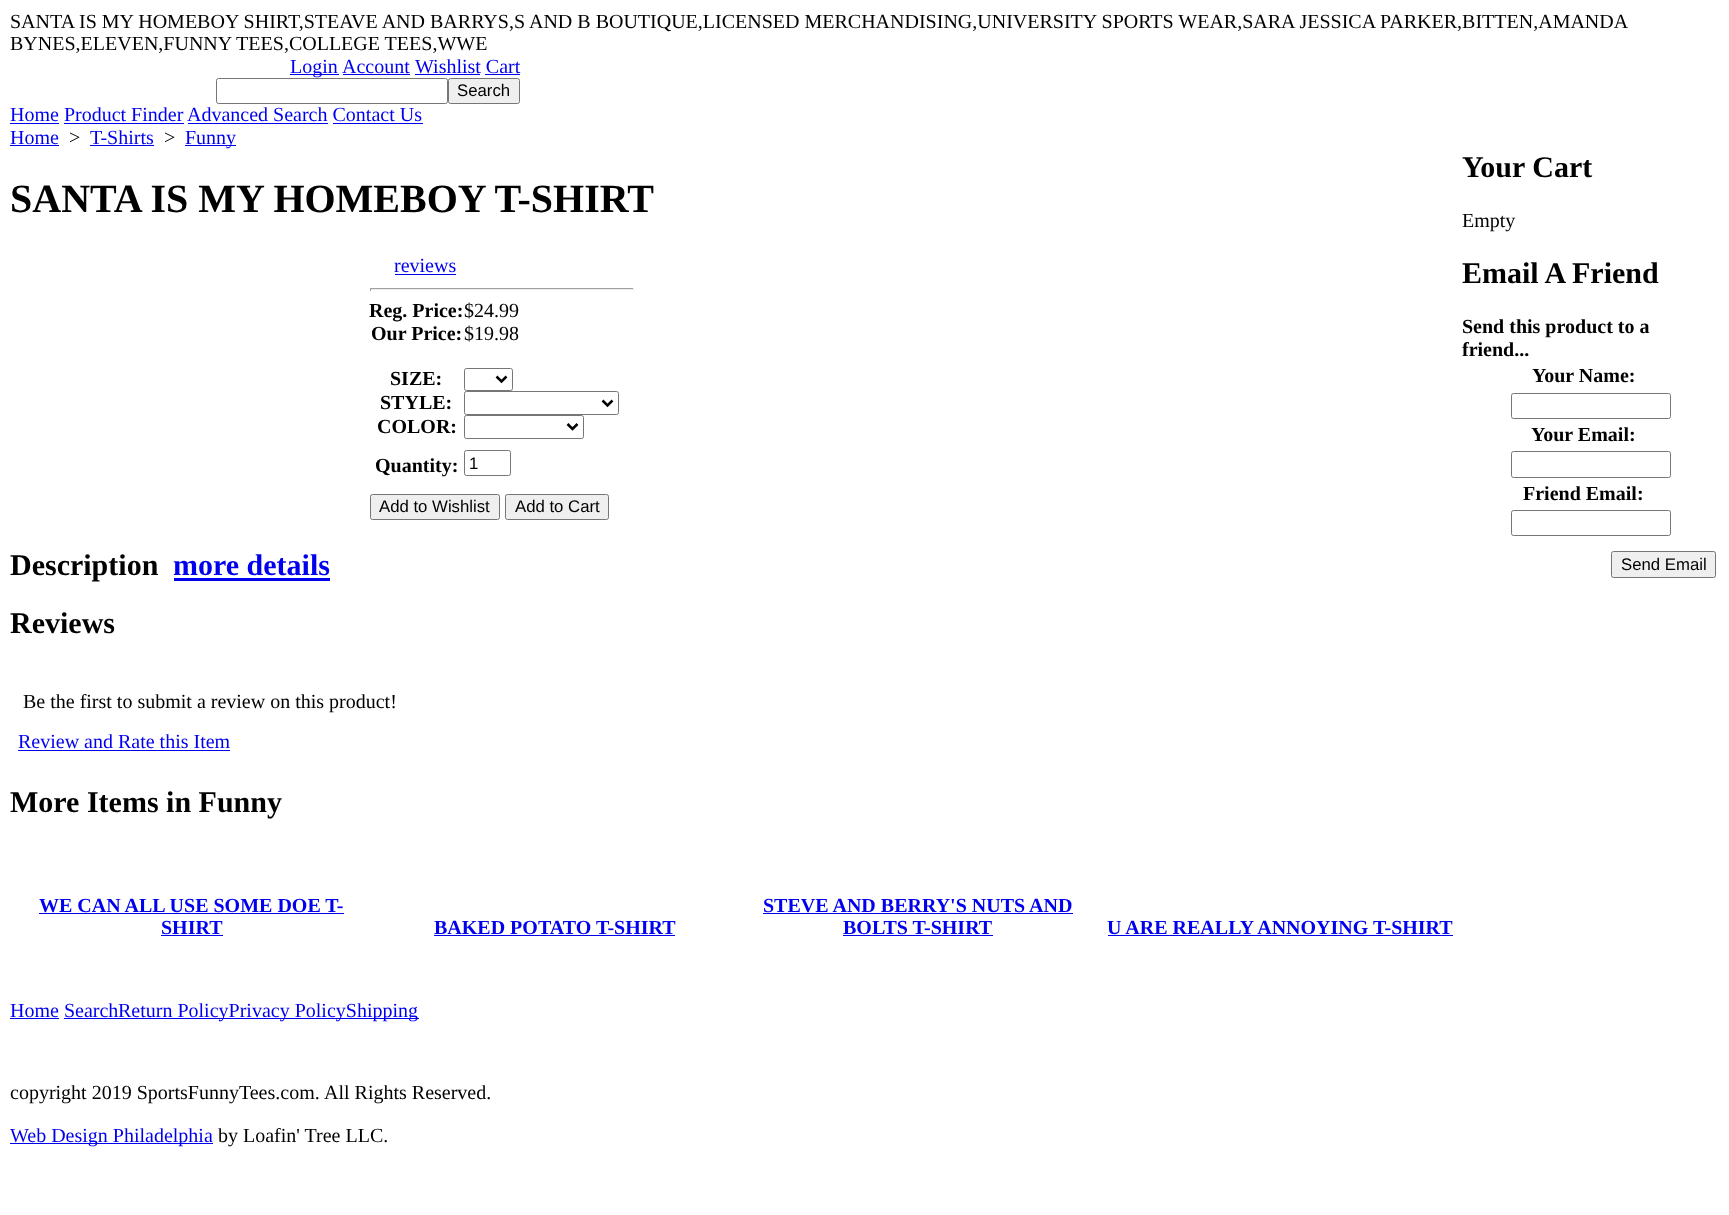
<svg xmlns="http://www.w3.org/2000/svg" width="1729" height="1215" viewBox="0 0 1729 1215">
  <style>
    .t1 { font: 20px Liberation Serif; fill: #000; }
    .t2 { font: 20px Liberation Serif; fill: #00e; }
    .t3 { font: 16.75px Liberation Sans; fill: #000; }
    .t4 { font: bold 40px Liberation Serif; fill: #000; }
    .t5 { font: bold 20px Liberation Serif; fill: #000; }
    .t6 { font: bold 30px Liberation Serif; fill: #000; }
    .t7 { font: bold 30px Liberation Serif; fill: #00e; }
    .t8 { font: bold 20px Liberation Serif; fill: #00e; }
  </style>
  <rect width="100%" height="100%" fill="#fff"/>
  <text x="10" y="28" class="t1">SANTA IS MY HOMEBOY SHIRT,STEAVE AND BARRYS,S AND B BOUTIQUE,LICENSED MERCHANDISING,UNIVERSITY SPORTS WEAR,SARA JESSICA PARKER,BITTEN,AMANDA</text>
  <text x="10" y="50" class="t1">BYNES,ELEVEN,FUNNY TEES,COLLEGE TEES,WWE</text>
  <rect x="290" y="74" width="49" height="1" fill="#00e"/>
  <text x="290" y="73" class="t2">Login</text>
  <text x="342" y="73" class="t2">Account</text>
  <rect x="343" y="74" width="67" height="1" fill="#00e"/>
  <text x="415" y="73" class="t2">Wishlist Cart</text>
  <rect x="415" y="74" width="65" height="1" fill="#00e"/>
  <rect x="485" y="74" width="35" height="1" fill="#00e"/>
  <rect x="216.5" y="78.5" width="231" height="25" rx="2" fill="none" stroke="#767676"/>
  <rect x="448.5" y="78.5" width="71" height="25" rx="2" fill="#efefef" stroke="#767676"/>
  <text x="457" y="96" class="t3">Search</text>
  <text x="10" y="121" class="t2">Home Product Finder</text>
  <rect x="10" y="123" width="49" height="1" fill="#00e"/>
  <text x="187" y="121" class="t2">Advanced Search Contact Us</text>
  <rect x="188" y="123" width="140" height="1" fill="#00e"/>
  <rect x="64" y="123" width="120" height="1" fill="#00e"/>
  <rect x="333" y="123" width="90" height="1" fill="#00e"/>
  <text x="10" y="144" class="t2">Home</text>
  <rect x="10" y="145" width="49" height="1" fill="#00e"/>
  <text x="69" y="144" class="t1">&gt;</text>
  <text x="90" y="144" class="t2">T-Shirts</text>
  <rect x="90" y="145" width="64" height="1" fill="#00e"/>
  <text x="164" y="144" class="t1">&gt;</text>
  <rect x="185" y="145" width="51" height="1" fill="#00e"/>
  <text x="185" y="144" class="t2">Funny</text>
  <text x="10" y="212" class="t4">SANTA IS MY HOMEBOY T-SHIRT</text>
  <text x="394" y="272" class="t2">reviews</text>
  <rect x="395" y="274" width="61" height="1" fill="#00e"/>
  <rect x="370" y="288" width="264" height="1" fill="#9f9f9f"/>
  <rect x="633" y="288" width="1" height="3" fill="#eee"/>
  <rect x="370" y="289" width="264" height="1" fill="#eee"/>
  <rect x="370" y="288" width="1" height="3" fill="#9f9f9f"/>
  <text x="369" y="317" class="t5">Reg. Price:</text>
  <text x="464" y="317" class="t1">$24.99</text>
  <text x="371" y="340" class="t5">Our Price:</text>
  <text x="464" y="340" class="t1">$19.98</text>
  <text x="390" y="385" class="t5">SIZE:</text>
  <rect x="464.5" y="368.5" width="48" height="22" rx="2" fill="none" stroke="#767676"/>
  <path d="M496.5 376.5L501.5 381.5L506.5 376.5" fill="none" stroke="#000" stroke-width="2.5"/>
  <text x="380" y="409" class="t5">STYLE:</text>
  <rect x="464.5" y="391.5" width="154" height="23" rx="2" fill="none" stroke="#767676"/>
  <path d="M602.5 400.5L607.5 405.5L612.5 400.5" fill="none" stroke="#000" stroke-width="2.5"/>
  <text x="377" y="433" class="t5">COLOR:</text>
  <rect x="464.5" y="415.5" width="119" height="23" rx="2" fill="none" stroke="#767676"/>
  <path d="M567.5 424L572.5 429L577.5 424" fill="none" stroke="#000" stroke-width="2.5"/>
  <text x="375" y="472" class="t5">Quantity:</text>
  <rect x="464.5" y="450.5" width="46" height="25" rx="2" fill="none" stroke="#767676"/>
  <text x="469" y="469" class="t3">1</text>
  <rect x="370.5" y="494.5" width="129" height="25" rx="2" fill="#efefef" stroke="#767676"/>
  <text x="379" y="512" class="t3">Add to Wishlist</text>
  <rect x="505.5" y="494.5" width="103" height="25" rx="2" fill="#efefef" stroke="#767676"/>
  <text x="515" y="512" class="t3">Add to Cart</text>
  <text x="10" y="575" class="t6">Description</text>
  <text x="173" y="575" class="t7">more details</text>
  <rect x="174" y="578" width="156" height="3" fill="#00e"/>
  <text x="10" y="633" class="t6">Reviews</text>
  <text x="23" y="708" class="t1">Be the first to submit a review on this product!</text>
  <text x="18" y="748" class="t2">Review and Rate this Item</text>
  <rect x="18" y="750" width="212" height="1" fill="#00e"/>
  <text x="10" y="812" class="t6">More Items in Funny</text>
  <text x="39" y="912" class="t8">WE CAN ALL USE SOME DOE T-</text>
  <rect x="39" y="913" width="305" height="1" fill="#00e"/>
  <text x="161" y="934" class="t8">SHIRT</text>
  <rect x="161" y="935" width="62" height="1" fill="#00e"/>
  <text x="434" y="934" class="t8">BAKED POTATO T-SHIRT</text>
  <rect x="434" y="935" width="241" height="1" fill="#00e"/>
  <text x="763" y="912" class="t8">STEVE AND BERRY'S NUTS AND</text>
  <rect x="763" y="913" width="310" height="1" fill="#00e"/>
  <text x="843" y="934" class="t8">BOLTS T-SHIRT</text>
  <rect x="843" y="935" width="150" height="1" fill="#00e"/>
  <text x="1107" y="934" class="t8">U ARE REALLY ANNOYING T-SHIRT</text>
  <rect x="1108" y="935" width="345" height="1" fill="#00e"/>
  <text x="1462" y="177" class="t6">Your Cart</text>
  <text x="1462" y="227" class="t1">Empty</text>
  <text x="1462" y="283" class="t6">Email A Friend</text>
  <text x="1462" y="333" class="t5">Send this product to a</text>
  <text x="1462" y="356" class="t5">friend...</text>
  <text x="1532" y="382" class="t5">Your Name:</text>
  <rect x="1511.5" y="393.5" width="159" height="25" rx="2" fill="none" stroke="#767676"/>
  <text x="1531" y="441" class="t5">Your Email:</text>
  <rect x="1511.5" y="451.5" width="159" height="26" rx="2" fill="none" stroke="#767676"/>
  <text x="1523" y="500" class="t5">Friend Email:</text>
  <rect x="1511.5" y="510.5" width="159" height="25" rx="2" fill="none" stroke="#767676"/>
  <rect x="1611.5" y="551.5" width="104" height="26" rx="2" fill="#efefef" stroke="#767676"/>
  <text x="1621" y="570" class="t3">Send Email</text>
  <text x="10" y="1017" class="t2">Home Search</text>
  <rect x="10" y="1018" width="49" height="1" fill="#00e"/>
  <rect x="64" y="1018" width="355" height="1" fill="#00e"/>
  <text x="118" y="1017" class="t2">Return PolicyPrivacy PolicyShipping</text>
  <text x="10" y="1099" class="t1">copyright 2019 SportsFunnyTees.com.</text>
  <text x="324" y="1099" class="t1">All Rights Reserved.</text>
  <rect x="10" y="1143" width="203" height="1" fill="#00e"/>
  <text x="10" y="1142" class="t2">Web Design Philadelphia</text>
  <text x="218" y="1142" class="t1">by Loafin' Tree LLC.</text>
</svg>
